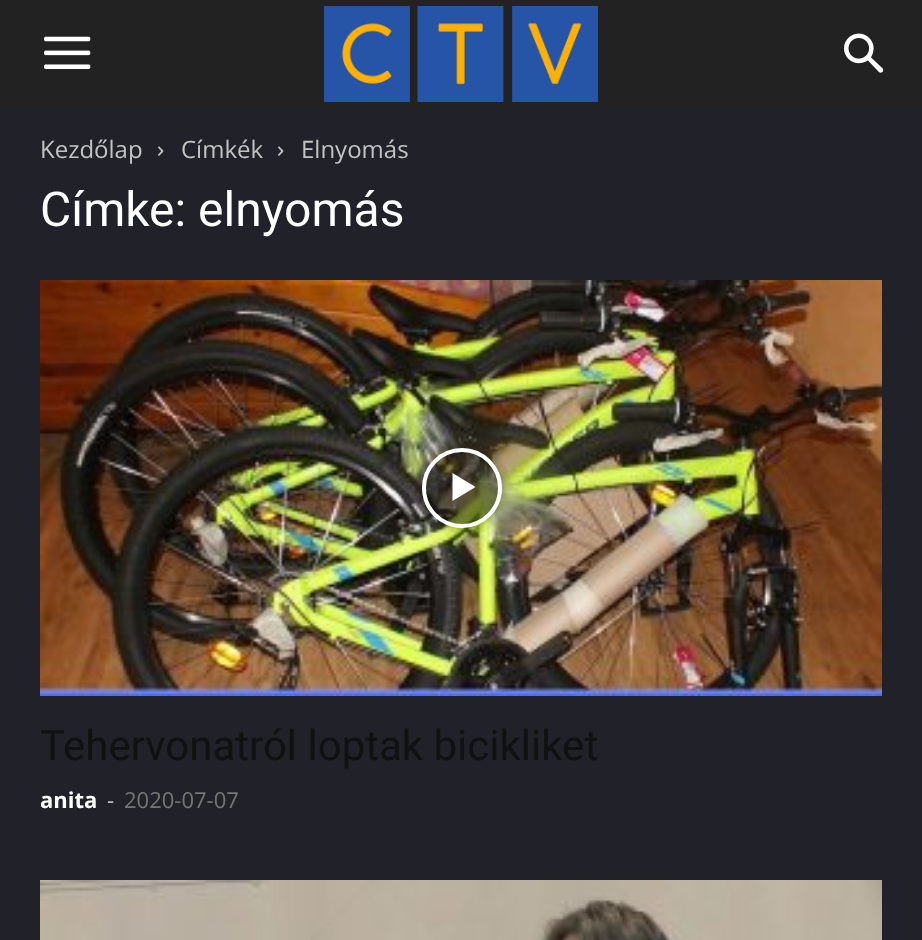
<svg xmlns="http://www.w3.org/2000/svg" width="922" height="940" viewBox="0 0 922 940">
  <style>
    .t1 { font: 24px Open Sans; fill: #c3c3c3; }
    .t2 { font: 48px Roboto; fill: #fff; }
    .t3 { font: 42px Roboto; fill: #111; }
    .t4 { font: bold 22px Open Sans; fill: #fff; }
    .t5 { font: 22px Open Sans; fill: #ccc; }
    .t6 { font: 22px Open Sans; fill: #767676; }
  </style>
  <defs>
    <clipPath id="clip1"><path d="M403 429H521V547H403ZM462 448C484 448 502 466 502 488C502 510 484 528 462 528C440 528 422 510 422 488C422 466 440 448 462 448Z" clip-rule="evenodd"/></clipPath>
  </defs>
  <rect width="100%" height="100%" fill="#202129"/>
  <rect x="0" y="0" width="922" height="108" fill="#222"/>
  <image x="44" y="36" width="47" height="33" href="images/1.png"/>
  <image x="324" y="6" width="274" height="96" href="images/2.png"/>
  <image x="844" y="33" width="40" height="40" href="images/3.png"/>
  <text x="40" y="158" class="t1">Kezdőlap</text>
  <image x="158" y="146" width="6" height="10" href="images/4.png"/>
  <text x="181" y="158" class="t1">Címkék</text>
  <image x="278" y="146" width="6" height="10" href="images/4.png"/>
  <text x="301" y="158" class="t1">Elnyomás</text>
  <text x="40" y="226" class="t2">Címke: elnyomás</text>
  <image x="40" y="280" width="842" height="416" href="images/5.png"/>
  <g clip-path="url(#clip1)">
    <rect x="422" y="448" width="80" height="80" rx="40" fill="#00000066" filter="blur(6px)"/>
  </g>
  <circle cx="462" cy="488" r="38" fill="#0000007a" stroke="#fff" stroke-width="4"/>
  <path d="M452.5 473V501L475.5 487Z" fill="#fff"/>
  <text x="40" y="760" class="t3">Tehervonatról loptak bicikliket</text>
  <text x="40" y="808" class="t4">anita</text>
  <text x="107" y="808" class="t5">-</text>
  <text x="124" y="808" class="t6">2020-07-07</text>
  <image x="40" y="880" width="842" height="60" href="images/6.png"/>
</svg>
